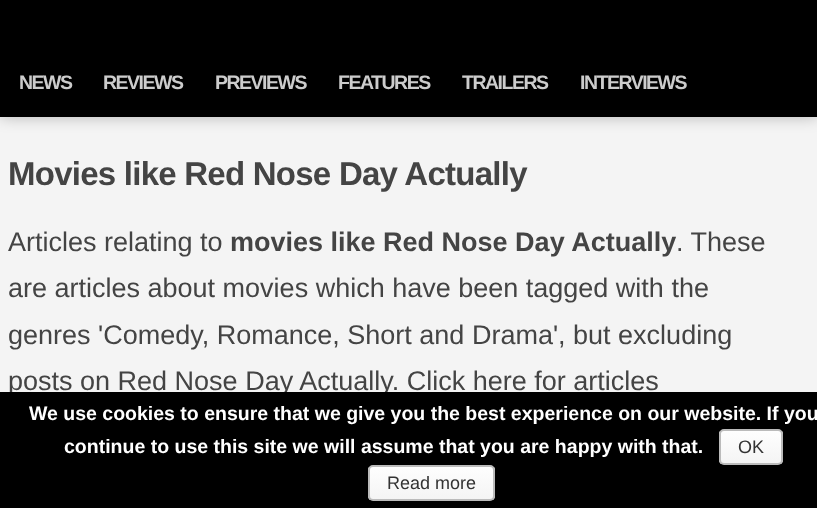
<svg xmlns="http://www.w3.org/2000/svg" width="817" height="508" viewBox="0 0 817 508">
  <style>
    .t1 { font: bold 19.5px Liberation Sans; letter-spacing: -1.5px; fill: #ccc; }
    .t2 { font: bold 33px Liberation Sans; letter-spacing: -0.75px; fill: #444; }
    .t3 { font: 27px Liberation Sans; fill: #444; }
    .t4 { font: bold 27px Liberation Sans; fill: #444; }
    .t5 { font: bold 19.5px Liberation Sans; fill: #fff; }
    .t6 { font: 18px Liberation Sans; fill: #333; }
  </style>
  <defs>
    <clipPath id="clip1"><rect x="719" y="429" width="64" height="36" rx="5"/></clipPath>
    <linearGradient id="g1" gradientUnits="userSpaceOnUse" x1="751" y1="431" x2="751" y2="464"><stop offset="0" stop-color="#fefefe"/><stop offset="1" stop-color="#f4f4f4"/></linearGradient>
    <clipPath id="clip2"><rect x="368" y="465" width="127" height="36" rx="5"/></clipPath>
    <linearGradient id="g2" gradientUnits="userSpaceOnUse" x1="431" y1="467" x2="431" y2="500"><stop offset="0" stop-color="#fefefe"/><stop offset="1" stop-color="#f4f4f4"/></linearGradient>
  </defs>
  <rect width="100%" height="100%" fill="#f4f4f4"/>
  <rect x="0" y="0" width="817" height="44" fill="#000"/>
  <rect x="0" y="44" width="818" height="73" fill="#00000040" filter="blur(7.5px)"/>
  <rect x="0" y="44" width="817" height="73" fill="#000"/>
  <text x="19" y="89" class="t1">NEWS</text>
  <text x="103" y="89" class="t1">REVIEWS</text>
  <text x="215" y="89" class="t1">PREVIEWS</text>
  <text x="338" y="89" class="t1">FEATURES</text>
  <text x="462" y="89" class="t1">TRAILERS</text>
  <text x="580" y="89" class="t1">INTERVIEWS</text>
  <text x="8" y="185" class="t2">Movies like Red Nose Day Actually</text>
  <text x="8" y="251" class="t3">Articles relating to</text>
  <text x="230" y="251" class="t4">movies like Red Nose Day Actually</text>
  <text x="676" y="251" class="t3">. These</text>
  <text x="8" y="297" class="t3">are articles about movies which have been tagged with the</text>
  <text x="8" y="344" class="t3">genres 'Comedy, Romance, Short and Drama', but excluding</text>
  <text x="8" y="390" class="t3">posts on Red Nose Day Actually. Click here for articles</text>
  <rect x="0" y="392" width="817" height="116" fill="#000"/>
  <text x="29" y="420" class="t5">We use cookies to ensure that we give you the best experience on our website. If you</text>
  <text x="64" y="453" class="t5">continue to use this site we will assume that you are happy with that.</text>
  <g clip-path="url(#clip1)">
    <rect x="719" y="431" width="64" height="33" fill="url(#g1)"/>
  </g>
  <rect x="720" y="430" width="62" height="34" rx="4" fill="none" stroke="#bbb" stroke-width="2"/>
  <text x="738" y="453" class="t6">OK</text>
  <g clip-path="url(#clip2)">
    <rect x="368" y="467" width="127" height="33" fill="url(#g2)"/>
  </g>
  <rect x="369" y="466" width="125" height="34" rx="4" fill="none" stroke="#bbb" stroke-width="2"/>
  <text x="387" y="489" class="t6">Read more</text>
</svg>
